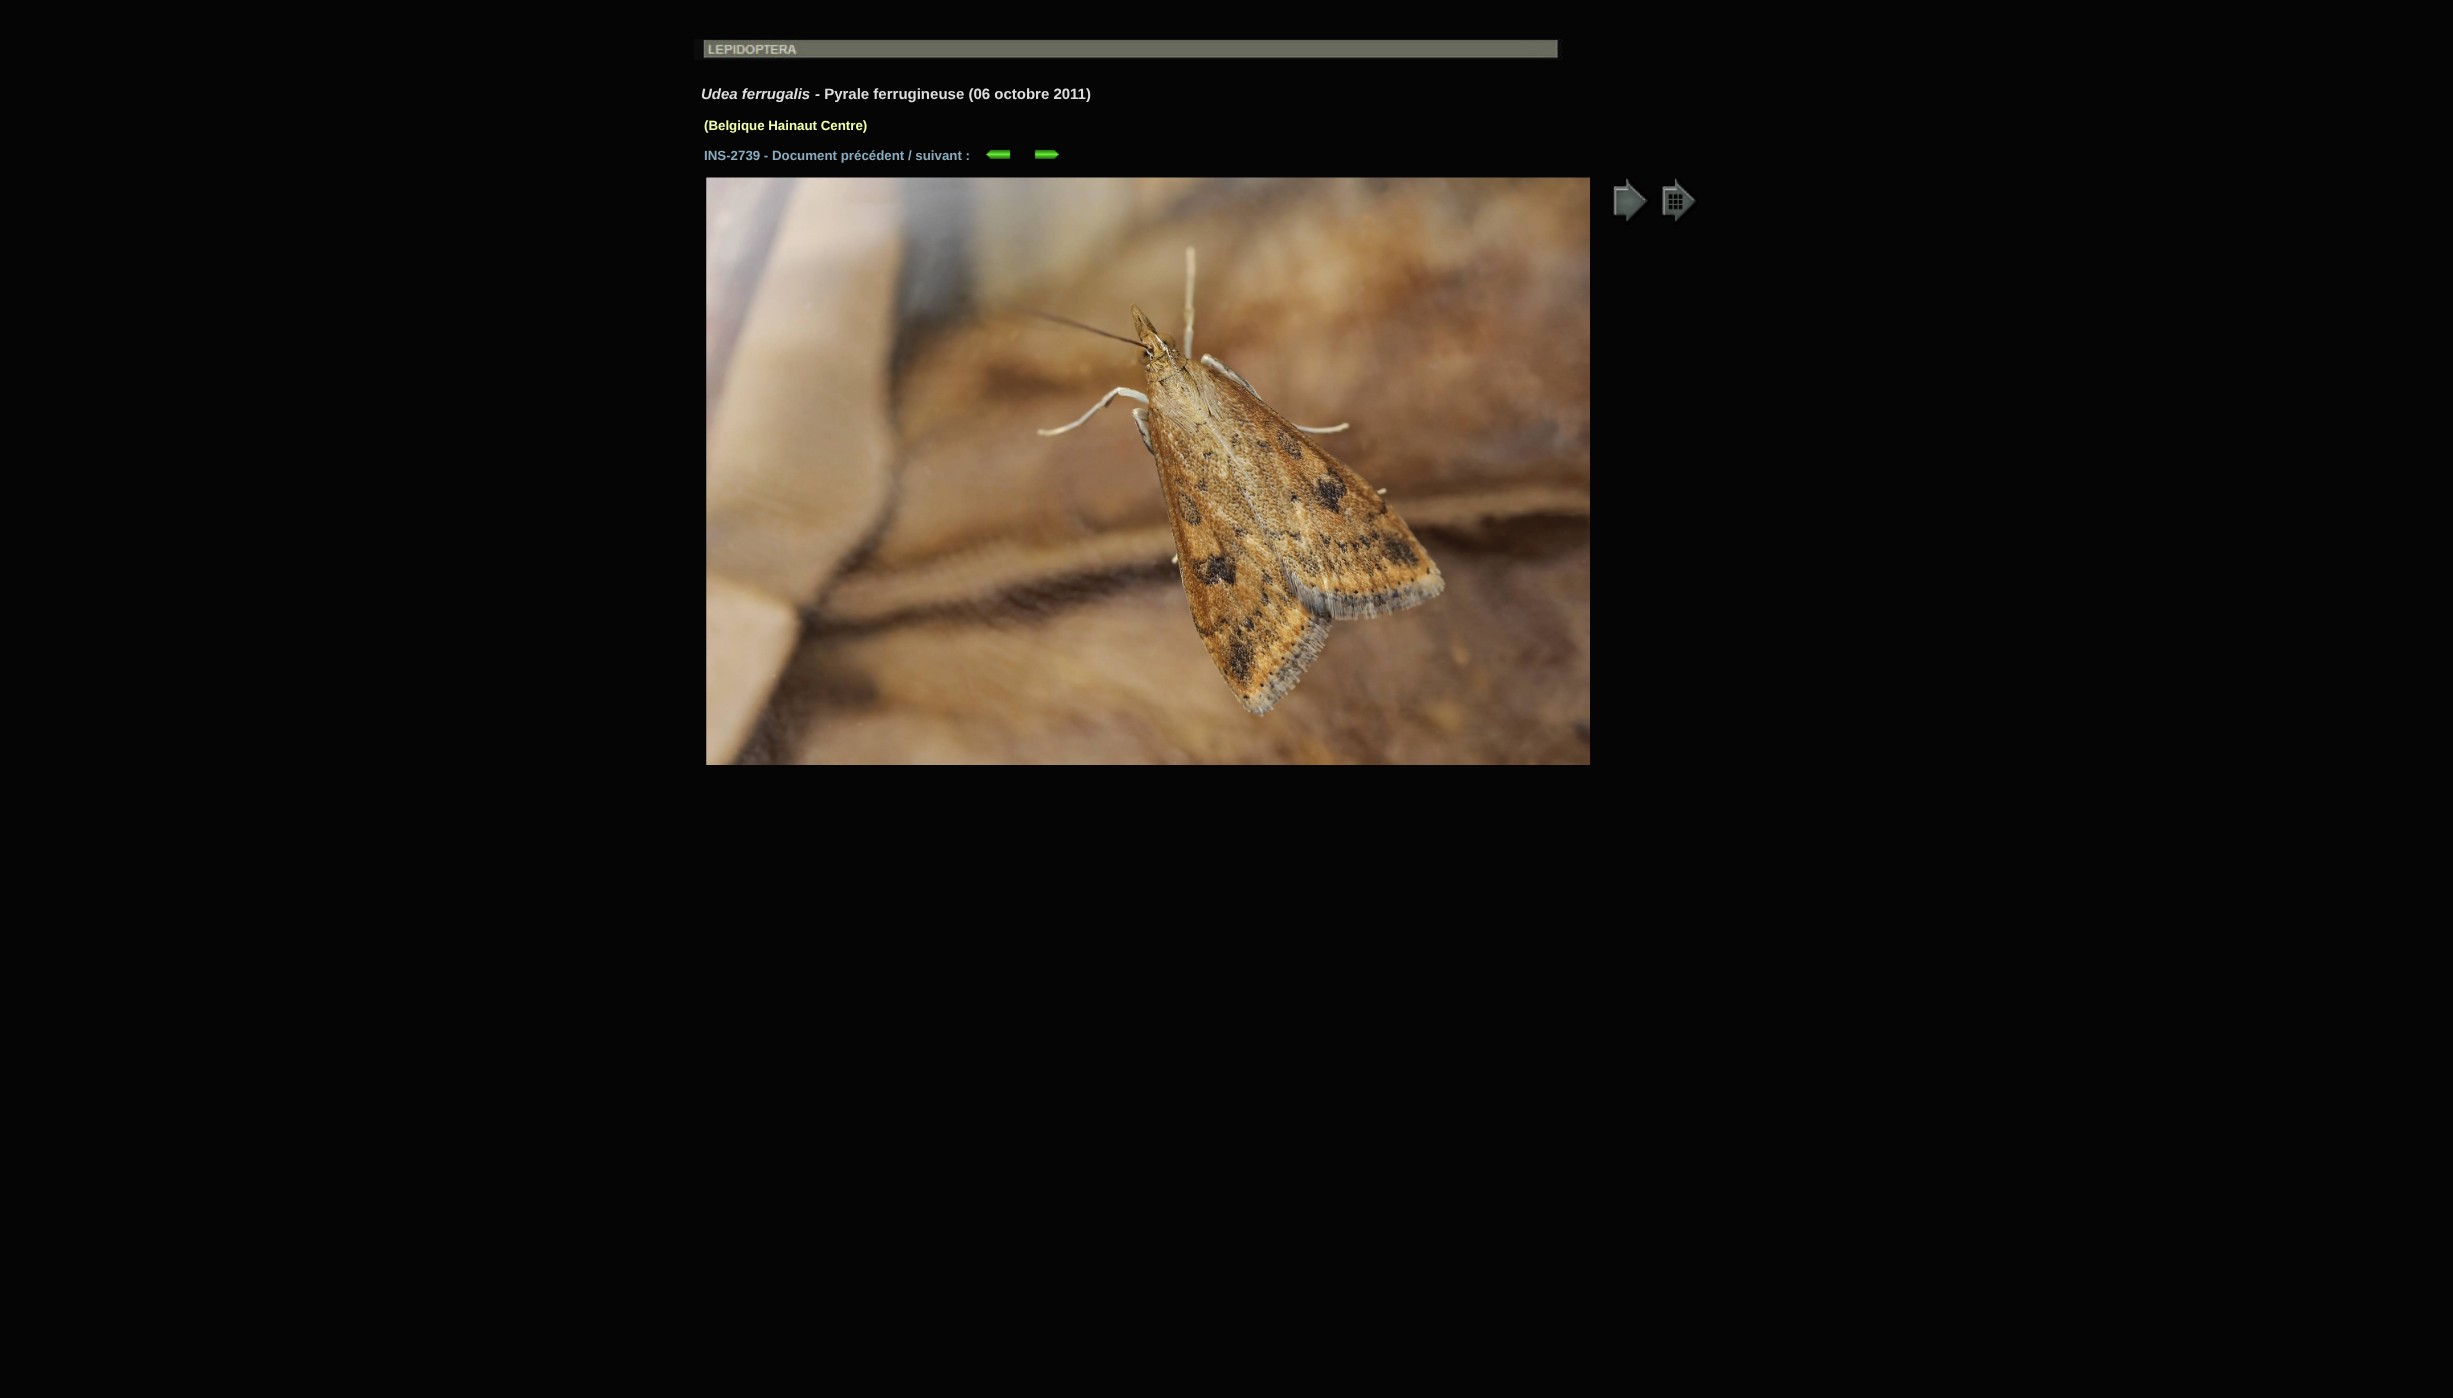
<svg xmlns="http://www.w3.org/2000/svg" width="2453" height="1398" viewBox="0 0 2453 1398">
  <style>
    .t1 { font: italic bold 15px Liberation Sans; fill: #ddd; }
    .t2 { font: bold 15px Liberation Sans; fill: #ddd; }
    .t3 { font: bold 13.3px Liberation Sans; fill: #efa; }
    .t4 { font: bold 13.3px Liberation Sans; fill: #89aabc; }
  </style>
  <rect width="100%" height="100%" fill="#050505"/>
  <image x="694" y="39" width="869" height="21" href="images/1.png"/>
  <text x="701" y="99" class="t1">Udea ferrugalis</text>
  <text x="815" y="99" class="t2">- Pyrale ferrugineuse (06 octobre 2011)</text>
  <text x="704" y="130" class="t3">(Belgique Hainaut Centre)</text>
  <text x="704" y="160" class="t4">INS-2739 - Document précédent / suivant :</text>
  <image x="986" y="149" width="25" height="10" href="images/2.png"/>
  <image x="1034" y="149" width="25" height="10" href="images/3.png"/>
  <image x="706" y="177" width="884" height="588" href="images/4.png"/>
  <image x="1613" y="178" width="37" height="47" href="images/5.png"/>
  <image x="1662" y="178" width="36" height="47" href="images/6.png"/>
</svg>
